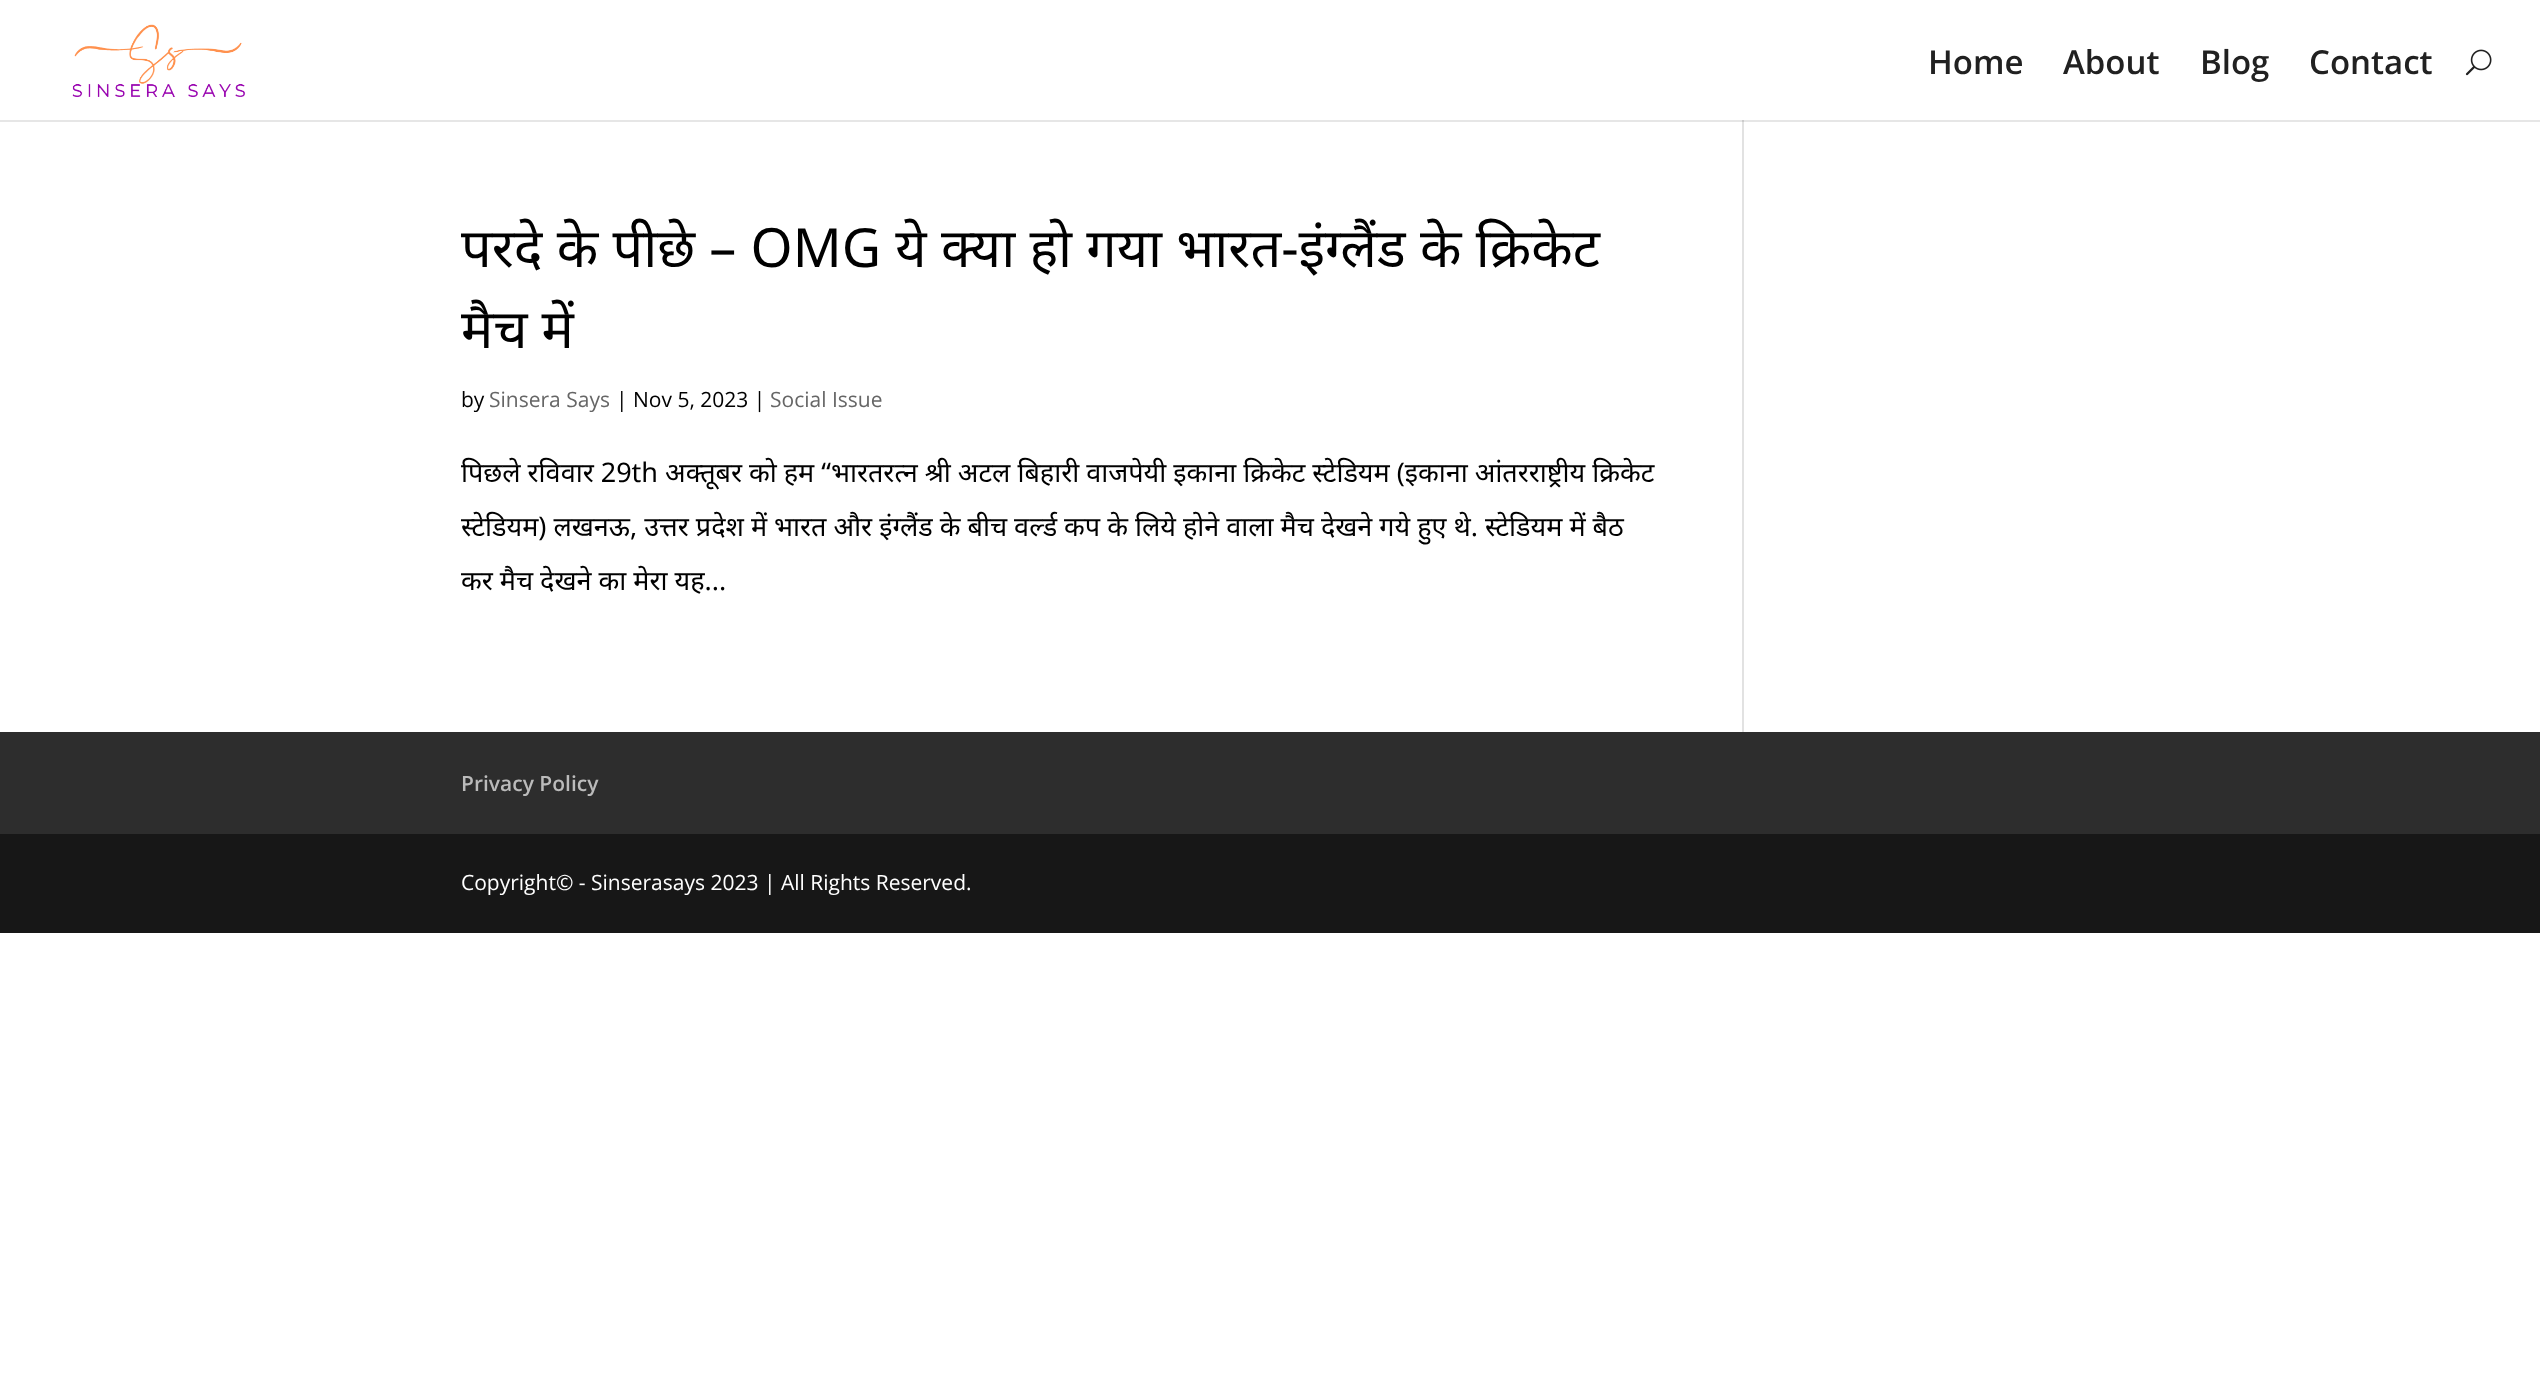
<svg xmlns="http://www.w3.org/2000/svg" width="2540" height="1384" viewBox="0 0 2540 1384">
  <style>
    .t1 { font: 600 33px Open Sans; fill: #212121; }
    .t2 { font: 54px Noto Sans; fill: #000; }
    .t3 { font: 21px Open Sans; fill: #000; }
    .t4 { font: 21px Open Sans; fill: #666; }
    .t5 { font: 27px Noto Sans; fill: #000; }
    .t6 { font: 600 21px Open Sans; fill: #bbb; }
    .t7 { font: 21px Open Sans; fill: #fff; }
  </style>
  <rect width="100%" height="100%" fill="#fff"/>
  <rect x="0" y="120" width="2540" height="2" fill="#e6e6e6"/>
  <image x="72" y="24" width="174" height="74" href="images/1.png"/>
  <text x="1928" y="74" class="t1">Home</text>
  <text x="2063" y="74" class="t1">About</text>
  <text x="2200" y="74" class="t1">Blog</text>
  <text x="2309" y="74" class="t1">Contact</text>
  <image x="2465" y="49" width="27" height="27" href="images/2.png"/>
  <text x="461" y="267" word-spacing="0.25" class="t2">परदे के पीछे – OMG ये क्या हो गया भारत-इंग्लैंड के क्रिकेट</text>
  <text x="461" y="348" class="t2">मैच में</text>
  <text x="461" y="407" class="t3">by</text>
  <text x="489" y="407" class="t4">Sinsera Says</text>
  <text x="616" y="407" class="t3">| Nov 5, 2023 |</text>
  <text x="770" y="407" class="t4">Social Issue</text>
  <text x="461" y="482" class="t5">पिछले रविवार 29th अक्तूबर को हम “भारतरत्न श्री अटल बिहारी वाजपेयी इकाना क्रिकेट स्टेडियम (इकाना आंतरराष्ट्रीय क्रिकेट</text>
  <text x="461" y="536" class="t5">स्टेडियम) लखनऊ, उत्तर प्रदेश में भारत और इंग्लैंड के बीच वर्ल्ड कप के लिये होने वाला मैच देखने गये हुए थे. स्टेडियम में बैठ</text>
  <text x="461" y="590" class="t5">कर मैच देखने का मेरा यह...</text>
  <rect x="1742" y="120" width="2" height="612" fill="#e2e2e2"/>
  <rect x="1742" y="120" width="2" height="2" fill="#cbcbcb"/>
  <rect x="0" y="732" width="2540" height="102" fill="#2d2d2d"/>
  <text x="461" y="791" class="t6">Privacy Policy</text>
  <rect x="0" y="834" width="2540" height="99" fill="#171717"/>
  <text x="461" y="890" class="t7">Copyright© - Sinserasays 2023 | All Rights Reserved.</text>
</svg>
